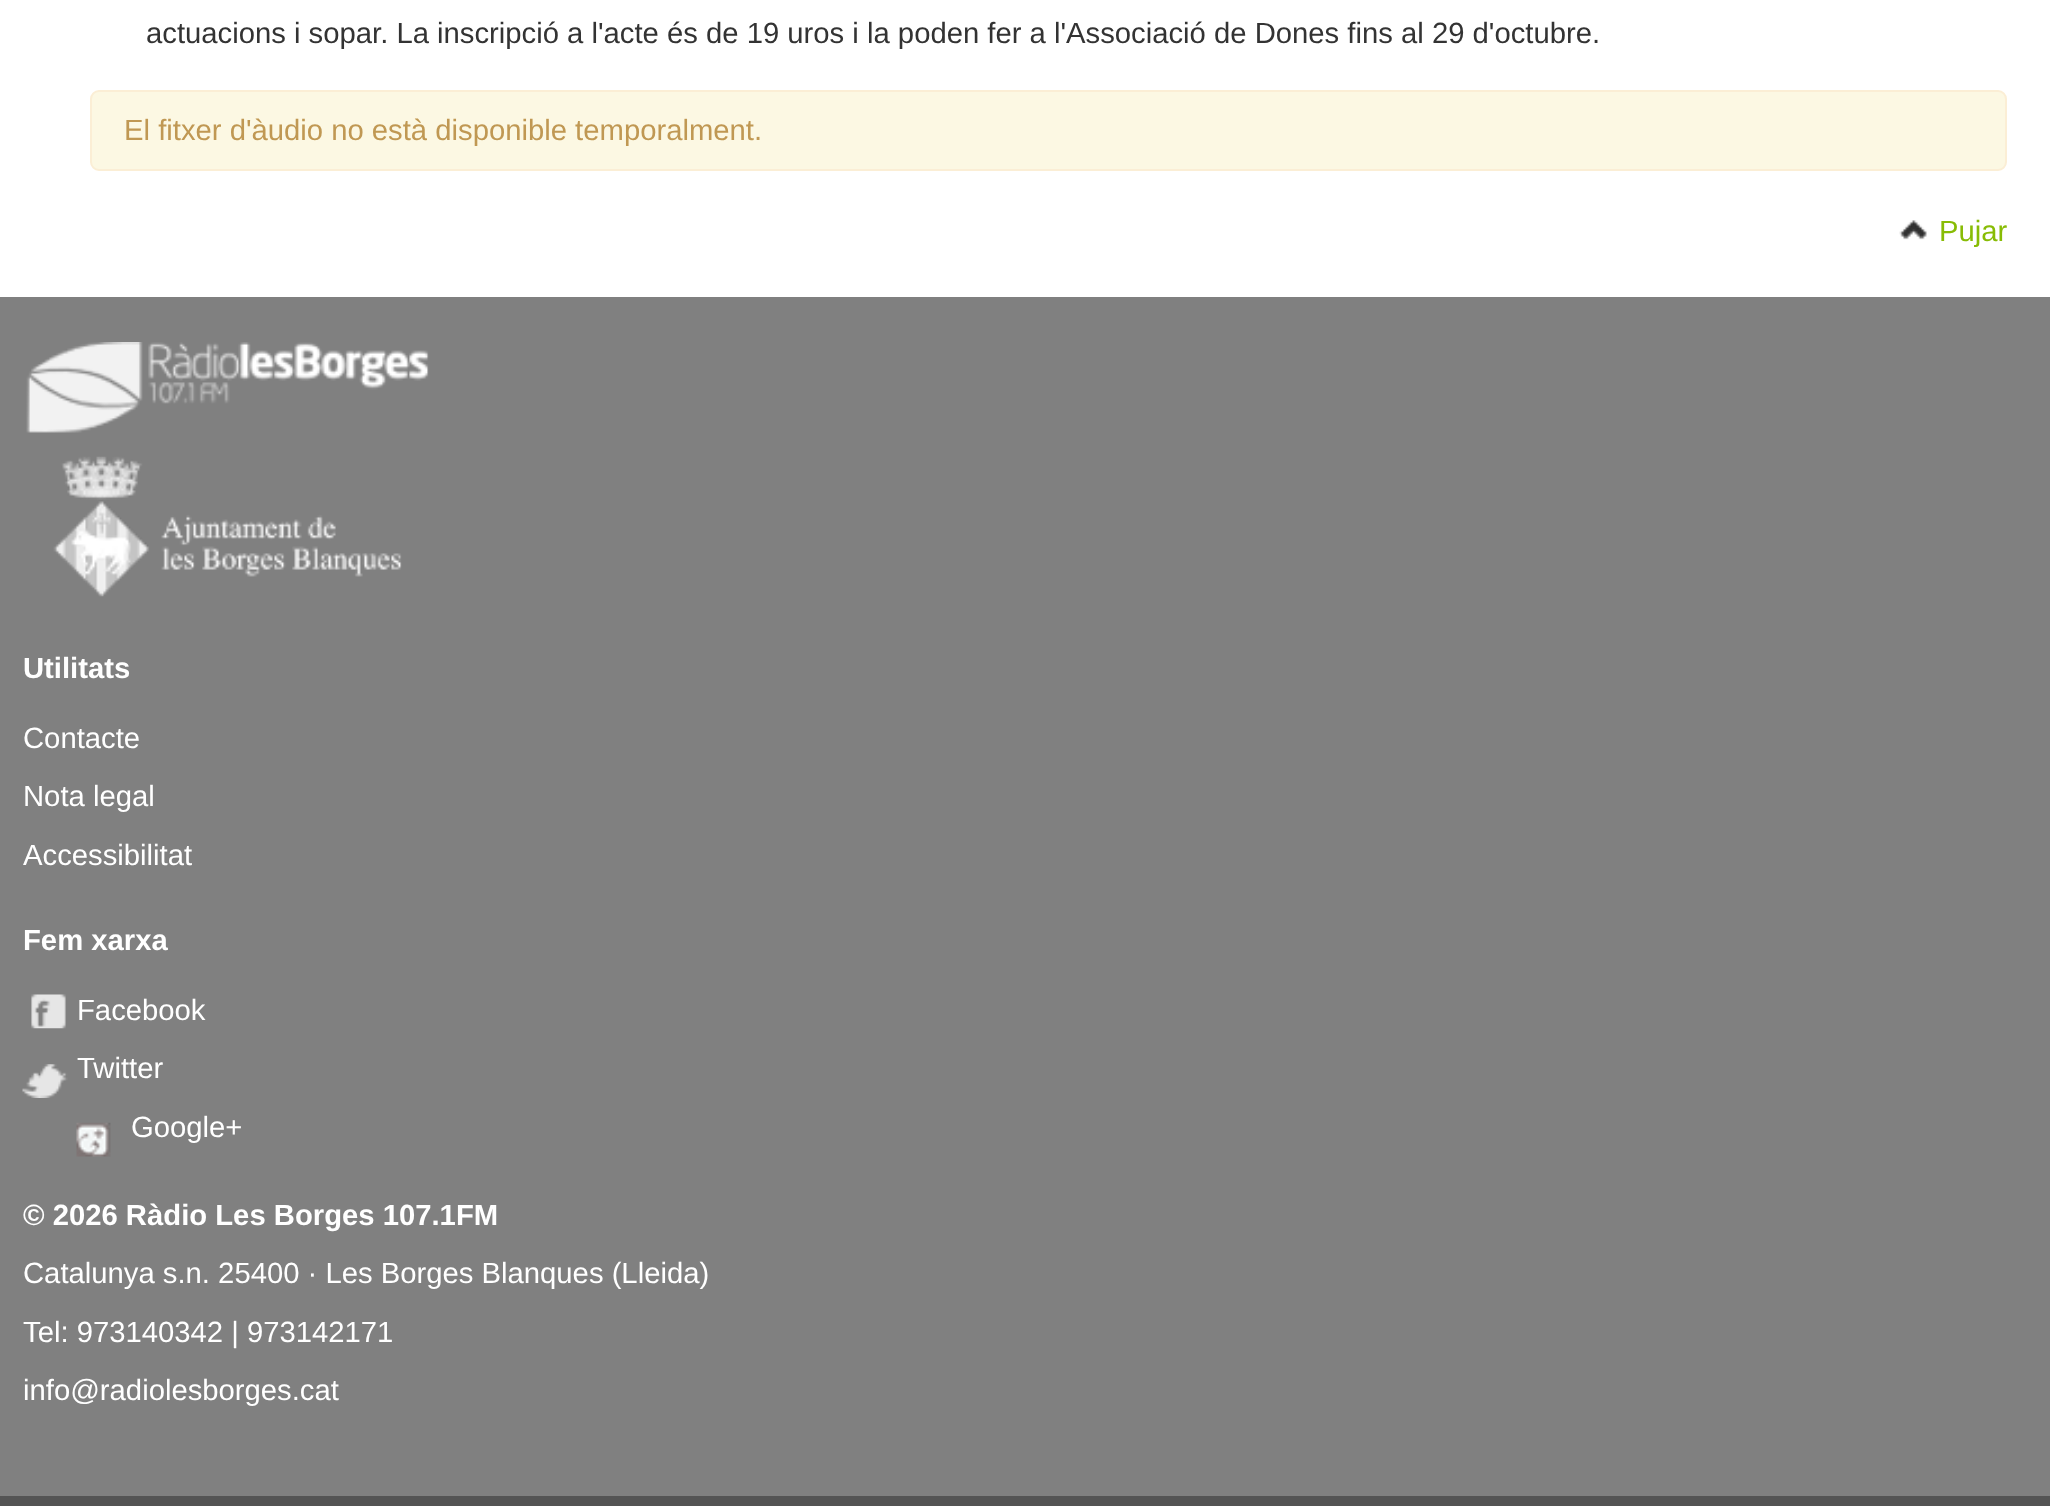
<svg xmlns="http://www.w3.org/2000/svg" width="2050" height="1506" viewBox="0 0 2050 1506">
  <style>
    .t1 { font: 29.25px Liberation Sans; fill: #333; }
    .t2 { font: 29.25px Liberation Sans; fill: #c09853; }
    .t3 { font: 29.25px Liberation Sans; fill: #88bc05; }
    .t4 { font: bold 29.25px Liberation Sans; fill: #fff; }
    .t5 { font: 29.25px Liberation Sans; fill: #fff; }
  </style>
  <rect width="100%" height="100%" fill="#fff"/>
  <text x="146" y="43" class="t1">actuacions i sopar. La inscripció a l'acte és de 19 uros i la poden fer a l'Associació de Dones fins al 29 d'octubre.</text>
  <rect x="91" y="91" width="1915" height="79" rx="8" fill="#fcf8e3" stroke="#fbeed5" stroke-width="2"/>
  <text x="124" y="140" class="t2">El fitxer d'àudio no està disponible temporalment.</text>
  <image x="1899" y="220" width="28" height="20" href="images/1.png"/>
  <text x="1939" y="241" class="t3">Pujar</text>
  <rect x="0" y="297" width="2050" height="1199" fill="#808080"/>
  <rect x="0" y="1496" width="2050" height="10" fill="#545454"/>
  <image x="26" y="342" width="403" height="91" href="images/2.png"/>
  <image x="53" y="456" width="349" height="141" href="images/3.png"/>
  <text x="23" y="678" class="t4">Utilitats</text>
  <text x="23" y="748" class="t5">Contacte</text>
  <text x="23" y="806" class="t5">Nota legal</text>
  <text x="23" y="865" class="t5">Accessibilitat</text>
  <text x="23" y="950" class="t4">Fem xarxa</text>
  <image x="31" y="994" width="35" height="35" href="images/4.png"/>
  <text x="77" y="1020" class="t5">Facebook</text>
  <image x="22" y="1064" width="46" height="34" href="images/5.png"/>
  <text x="77" y="1078" class="t5">Twitter</text>
  <image x="76" y="1122" width="35" height="35" href="images/6.png"/>
  <text x="131" y="1137" class="t5">Google+</text>
  <text x="23" y="1225" class="t4">© 2026 Ràdio Les Borges 107.1FM</text>
  <text x="23" y="1283" class="t5">Catalunya s.n. 25400 · Les Borges Blanques (Lleida)</text>
  <text x="23" y="1342" class="t5">Tel: 973140342 | 973142171</text>
  <text x="23" y="1400" class="t5">info@radiolesborges.cat</text>
</svg>
